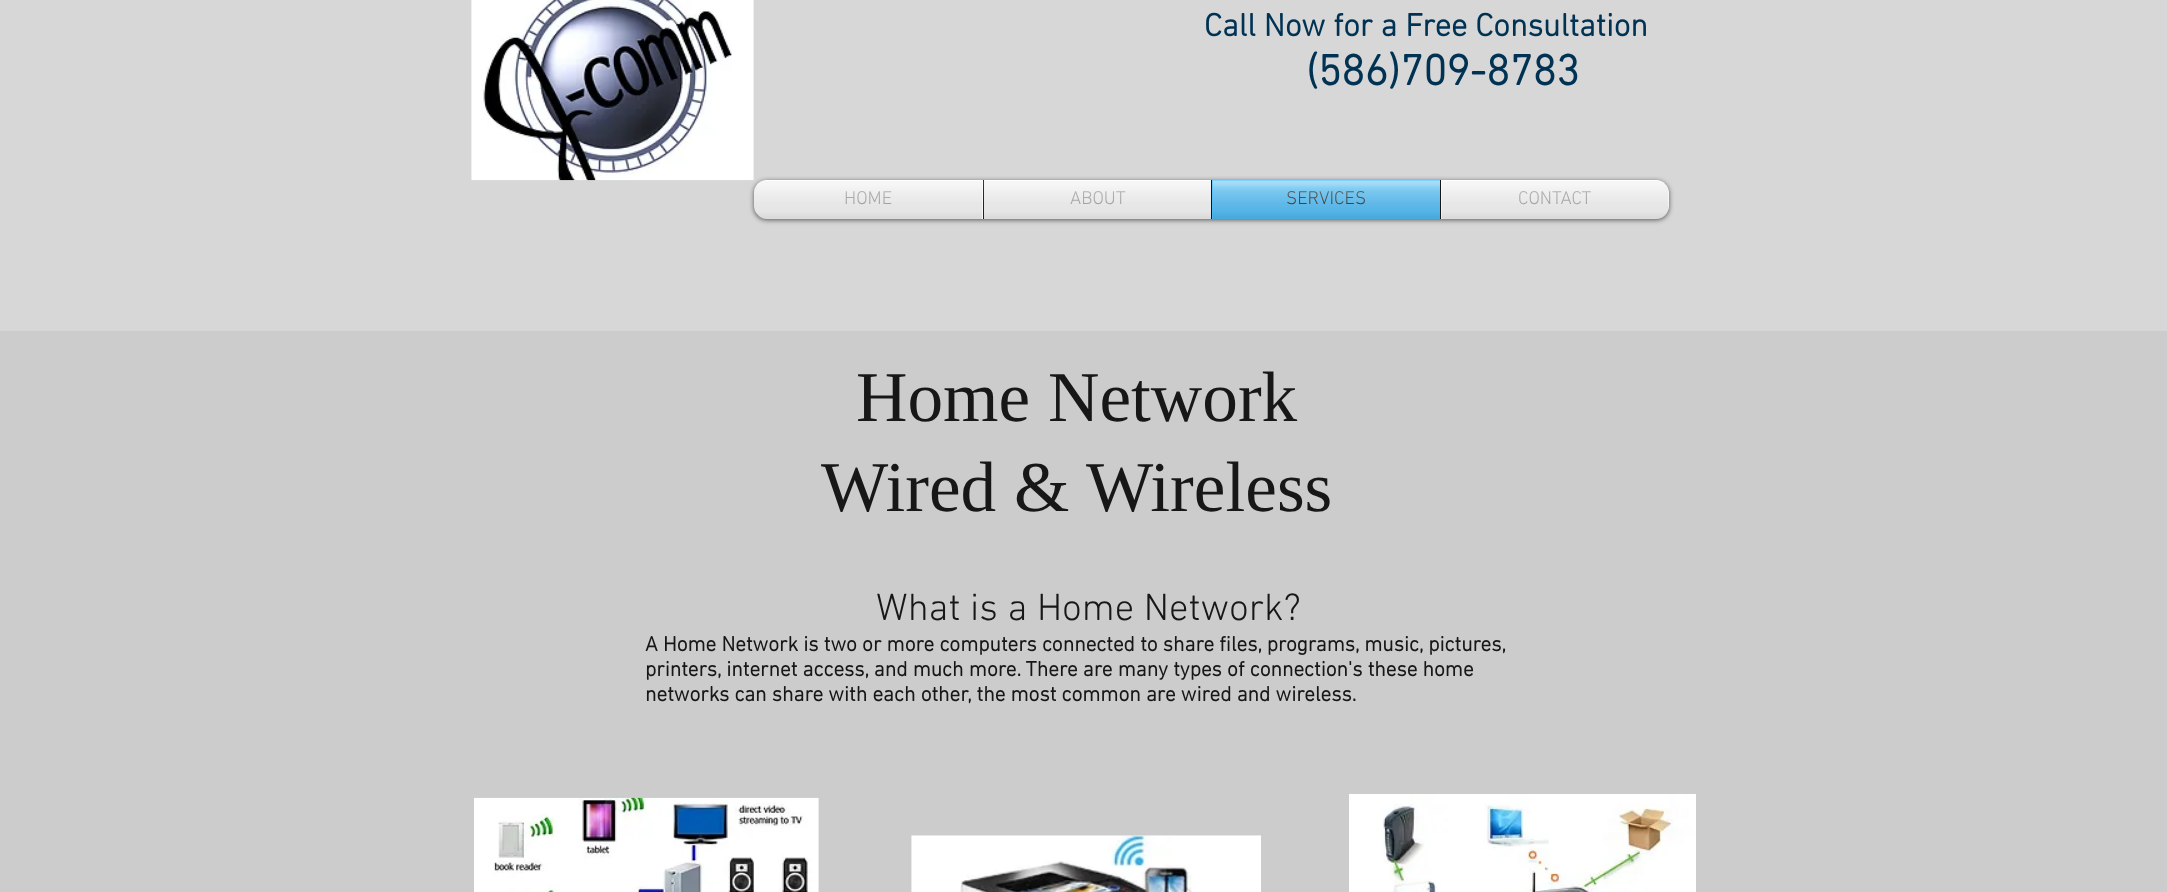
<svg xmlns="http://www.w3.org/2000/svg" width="2167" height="892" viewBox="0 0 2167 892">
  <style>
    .t1 { font: bold 32.5px 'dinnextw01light'; fill: #003254; }
    .t2 { font: bold 43.75px 'dinnextw01light'; fill: #003254; }
    .t3 { font: 300 18.75px 'dinnextw01light'; fill: #a0a09f; }
    .t4 { font: 300 18.75px 'dinnextw01light'; fill: #171717; }
    .t5 { font: 71.25px Liberation Serif; fill: #171717; }
    .t6 { font: 300 38.75px 'dinnextw01light'; fill: #171717; }
    .t7 { font: bold 21.25px 'dinnextw01light'; fill: #171717; }
  </style>
  <rect width="100%" height="100%" fill="#ccc"/>
  <rect x="0" y="0" width="2167" height="331" fill="#d7d7d7"/>
  <image x="471" y="0" width="283" height="181" href="images/1.png"/>
  <text x="1204" y="36" class="t1">Call Now for a Free Consultation</text>
  <text x="1306" y="85" class="t2">(586)709-8783</text>
  <rect x="754" y="181" width="915" height="39" rx="13" fill="#00000099" filter="blur(2.5px)"/>
  <image x="754" y="180" width="911" height="38" href="images/2.png"/>
  <image x="754" y="184" width="915" height="35" href="images/3.png"/>
  <path d="M767 180H983V219H767C760 219 754 213 754 206V193C754 186 760 180 767 180Z" fill="#fff"/>
  <text x="844" y="204" class="t3">HOME</text>
  <image x="845" y="191" width="47" height="13" href="images/4.png"/>
  <image x="754" y="181" width="229" height="38" href="images/5.png"/>
  <rect x="984" y="180" width="227" height="39" fill="#fff"/>
  <rect x="983" y="180" width="1" height="39" fill="#171717"/>
  <text x="1070" y="204" class="t3">ABOUT</text>
  <image x="983" y="180" width="142" height="39" href="images/6.png"/>
  <image x="984" y="181" width="227" height="38" href="images/7.png"/>
  <rect x="1212" y="180" width="228" height="39" fill="#41bfff"/>
  <rect x="1211" y="180" width="1" height="39" fill="#171717"/>
  <text x="1286" y="204" class="t4">SERVICES</text>
  <image x="1212" y="180" width="228" height="39" href="images/8.png"/>
  <image x="1212" y="181" width="228" height="38" href="images/9.png"/>
  <path d="M1440 180H1656C1663 180 1669 186 1669 193V206C1669 213 1663 219 1656 219H1440Z" fill="#fff"/>
  <rect x="1440" y="180" width="1" height="39" fill="#171717"/>
  <text x="1518" y="204" class="t3">CONTACT</text>
  <image x="1519" y="191" width="73" height="13" href="images/10.png"/>
  <image x="1441" y="181" width="228" height="38" href="images/11.png"/>
  <text x="856" y="421" class="t5">Home Network</text>
  <text x="821" y="511" class="t5">Wired &amp; Wireless</text>
  <text x="876" y="620" class="t6">What is a Home Network?</text>
  <text x="645" y="651" class="t7">A Home Network is two or more computers connected to share files, programs, music, pictures,</text>
  <text x="645" y="676" class="t7">printers, internet access, and much more. There are many types of connection's these home</text>
  <text x="645" y="701" class="t7">networks can share with each other, the most common are wired and wireless.</text>
  <image x="474" y="797" width="345" height="95" href="images/12.png"/>
  <image x="911" y="835" width="350" height="57" href="images/13.png"/>
  <image x="1349" y="794" width="347" height="98" href="images/14.png"/>
</svg>
